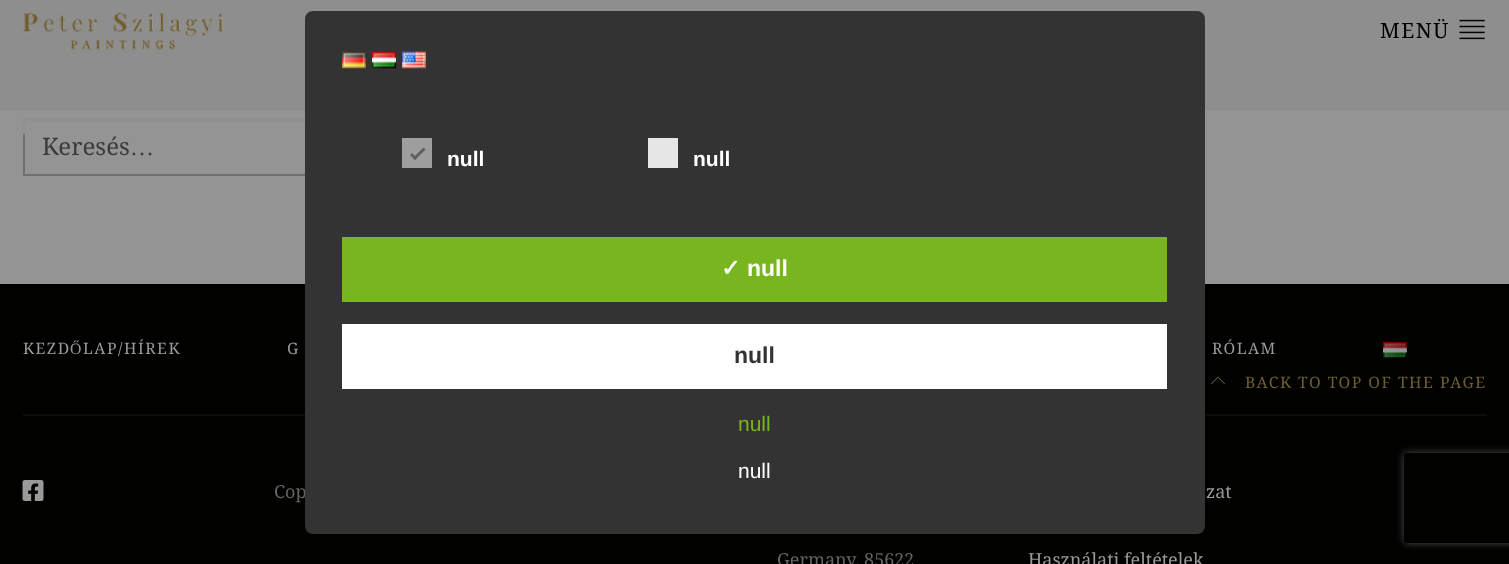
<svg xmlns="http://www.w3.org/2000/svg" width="1509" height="564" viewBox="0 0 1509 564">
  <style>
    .t1 { font: 21px Droid Serif; letter-spacing: 1.5px; fill: #000; }
    .t2 { font: 24px Droid Serif; fill: #3b3b3b; }
    .t3 { font: 24px Liberation Serif; fill: #3b3b3b; }
    .t4 { font: 15.75px Droid Serif; letter-spacing: 1.5px; fill: #999; }
    .t5 { font: 15.75px Liberation Serif; letter-spacing: 1.5px; fill: #999; }
    .t6 { font: 15.75px Droid Serif; letter-spacing: 1.5px; fill: #6e5e2f; }
    .t7 { font: 18px Droid Serif; fill: #646464; }
    .t8 { font: 18px Droid Serif; fill: #999; }
    .t9 { font: bold 21px Liberation Sans; fill: #fff; }
    .t10 { font: bold 23px DejaVu Sans; fill: #fff; }
    .t11 { font: bold 23px Liberation Sans; fill: #fff; }
    .t12 { font: bold 23px Liberation Sans; fill: #333; }
    .t13 { font: 21px Liberation Sans; fill: #79b51f; }
    .t14 { font: 21px Liberation Sans; fill: #fff; }
  </style>
  <defs>
    <clipPath id="clip1"><path d="M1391 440H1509V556H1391ZM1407 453H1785C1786.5 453 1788 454.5 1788 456V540C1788 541.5 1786.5 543 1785 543H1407C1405.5 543 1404 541.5 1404 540V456C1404 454.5 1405.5 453 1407 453Z" clip-rule="evenodd"/></clipPath>
  </defs>
  <rect width="100%" height="100%" fill="#949494"/>
  <rect x="0" y="0" width="1509" height="110" fill="#0000000a"/>
  <image x="22" y="12" width="202" height="38" href="images/1.png"/>
  <text x="1380" y="38" class="t1">MENÜ</text>
  <image x="1459" y="19" width="26" height="21" href="images/2.png"/>
  <rect x="24" y="120" width="322" height="55" fill="none" stroke="#6f6f6f" stroke-width="2"/>
  <rect x="23" y="119" width="324" height="15" fill="#949494e6"/>
  <text x="42" y="155" class="t2">Keresés</text>
  <text x="130" y="155" class="t3">…</text>
  <rect x="0" y="284" width="1509" height="280" fill="#010100"/>
  <text x="23" y="354" class="t4">KEZD</text>
  <text x="70" y="354" class="t5">Ő</text>
  <text x="83" y="354" class="t4">LAP/HÍREK</text>
  <text x="287" y="354" class="t4">G</text>
  <text x="1212" y="354" class="t4">RÓLAM</text>
  <image x="1383" y="342" width="24" height="17" href="images/3.png"/>
  <image x="1211" y="376" width="14" height="8" href="images/4.png"/>
  <text x="1245" y="388" class="t6">BACK TO TOP OF THE PAGE</text>
  <rect x="23" y="414" width="1464" height="2" fill="#0d0d0d"/>
  <image x="22" y="480" width="22" height="21" href="images/5.png"/>
  <text x="274" y="498" class="t7">Cop</text>
  <text x="777" y="566" class="t7">Germany, 85622</text>
  <text x="1206" y="498" class="t8">zat</text>
  <text x="1028" y="566" class="t8">Használati feltételek</text>
  <rect x="305" y="11" width="900" height="523" rx="8" fill="#333"/>
  <image x="342" y="51" width="24" height="18" href="images/6.png"/>
  <image x="372" y="51" width="24" height="18" href="images/7.png"/>
  <image x="402" y="51" width="24" height="18" href="images/8.png"/>
  <rect x="402" y="138" width="30" height="30" fill="#9e9e9e"/>
  <path d="M423.5 147.5L425.5 149.5L415 160L413 158Z" fill="#5e5e5e"/>
  <path d="M412 153L417 158L415 160L410 155Z" fill="#5e5e5e"/>
  <text x="447" y="166" class="t9">null</text>
  <rect x="648" y="138" width="30" height="30" fill="#e6e6e6"/>
  <text x="693" y="166" class="t9">null</text>
  <rect x="342" y="237" width="825" height="65" fill="#79b51f"/>
  <text x="721" y="276" class="t10">✓</text>
  <text x="747" y="276" class="t11">null</text>
  <rect x="342" y="324" width="825" height="65" fill="#fff"/>
  <text x="734" y="363" class="t12">null</text>
  <text x="738" y="431" class="t13">null</text>
  <text x="738" y="478" class="t14">null</text>
  <g clip-path="url(#clip1)">
    <rect x="1404" y="453" width="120" height="90" rx="3" fill="#4d4d4d" filter="blur(4px)"/>
  </g>
</svg>
